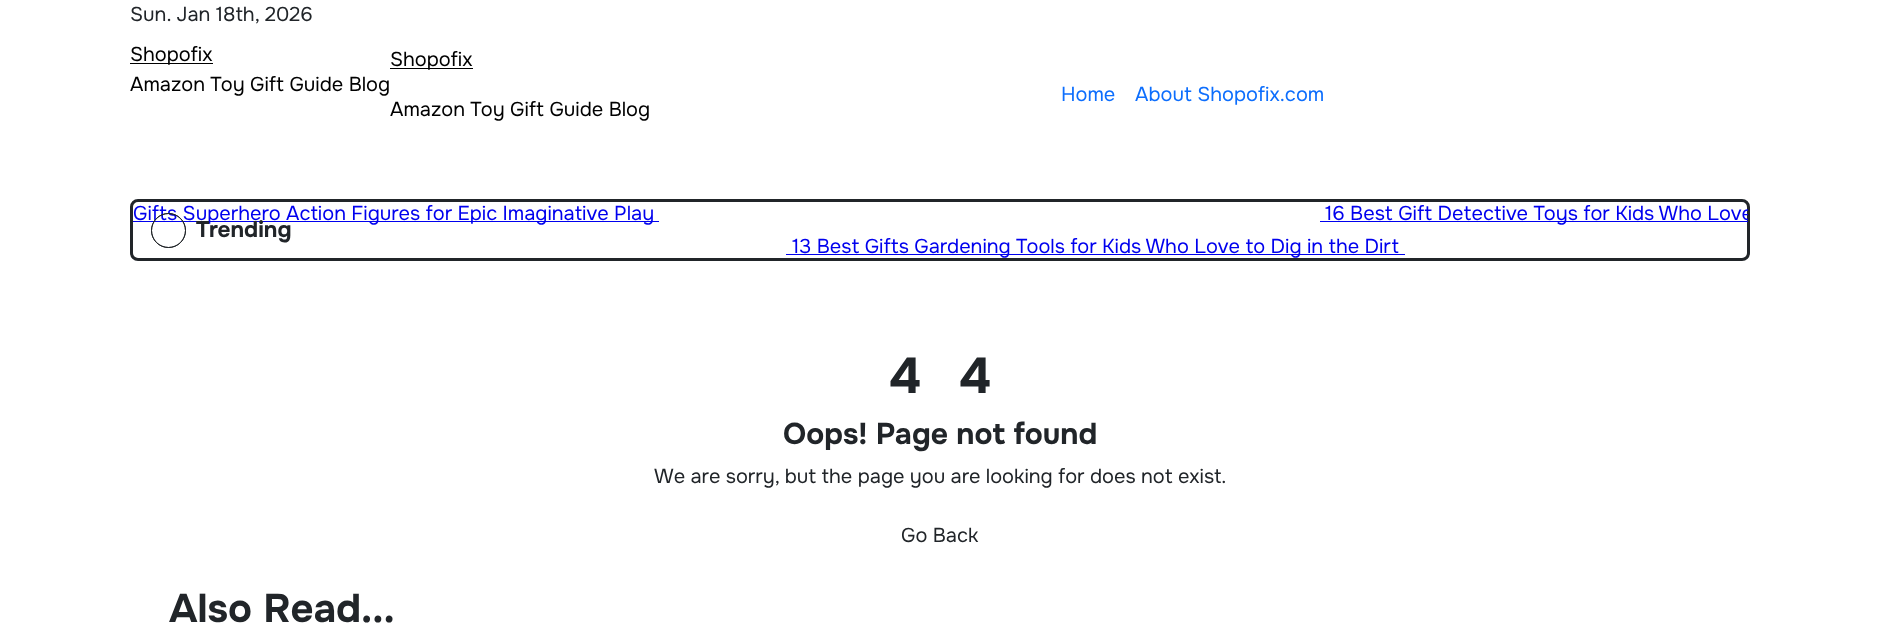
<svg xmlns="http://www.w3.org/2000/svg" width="1879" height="623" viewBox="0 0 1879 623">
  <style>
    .t1 { font: 20px Onest; fill: #212529; }
    .t2 { font: 20px Onest; fill: #000; }
    .t3 { font: 20px Onest; fill: #0d6efd; }
    .t4 { font: 20px Onest; fill: #00e; }
    .t5 { font: bold 22.5px Onest; fill: #212529; }
    .t6 { font: bold 50px Onest; fill: #212529; }
    .t7 { font: bold 30px Onest; fill: #212529; }
    .t8 { font: bold 40px Onest; fill: #212529; }
  </style>
  <defs>
    <clipPath id="clip1"><rect x="133" y="201" width="1615" height="58" rx="5"/></clipPath>
  </defs>
  <rect width="100%" height="100%" fill="#fff"/>
  <text x="130" y="21" class="t1">Sun. Jan 18th, 2026</text>
  <rect x="130" y="63" width="83" height="1" fill="#000"/>
  <text x="130" y="61" class="t2">Shopofix</text>
  <text x="130" y="91" class="t2">Amazon Toy Gift Guide Blog</text>
  <rect x="390" y="68" width="83" height="1" fill="#000"/>
  <text x="390" y="66" class="t2">Shopofix</text>
  <text x="390" y="116" class="t2">Amazon Toy Gift Guide Blog</text>
  <text x="1061" y="101" class="t3">Home</text>
  <text x="1135" y="101" class="t3">About Shopofix.com</text>
  <rect x="131.5" y="200.5" width="1617" height="59" rx="6.5" fill="none" stroke="#212529" stroke-width="3"/>
  <rect x="133" y="221" width="526" height="1" fill="#00e"/>
  <text x="133" y="220" class="t4">Gifts Superhero Action Figures for Epic Imaginative Play</text>
  <rect x="1320" y="221" width="428" height="1" fill="#00e"/>
  <g clip-path="url(#clip1)">
    <text x="1325" y="220" class="t4">16 Best Gift Detective Toys for Kids Who Love</text>
  </g>
  <rect x="786" y="254" width="619" height="1" fill="#00e"/>
  <text x="792" y="253" class="t4">13 Best Gifts Gardening Tools for Kids Who Love to Dig in the Dirt</text>
  <circle cx="168.5" cy="230.5" r="17" fill="none" stroke="#212529"/>
  <circle cx="168.5" cy="230.5" r="17" fill="none" stroke="#212529"/>
  <text x="196" y="237" class="t5">Trending</text>
  <text x="889" y="393" class="t6">4</text>
  <text x="959" y="393" class="t6">4</text>
  <text x="783" y="444" class="t7">Oops! Page not found</text>
  <text x="654" y="483" class="t1">We are sorry, but the page you are looking for does not exist.</text>
  <text x="901" y="542" class="t1">Go Back</text>
  <text x="169" y="622" class="t8">Also Read...</text>
</svg>
